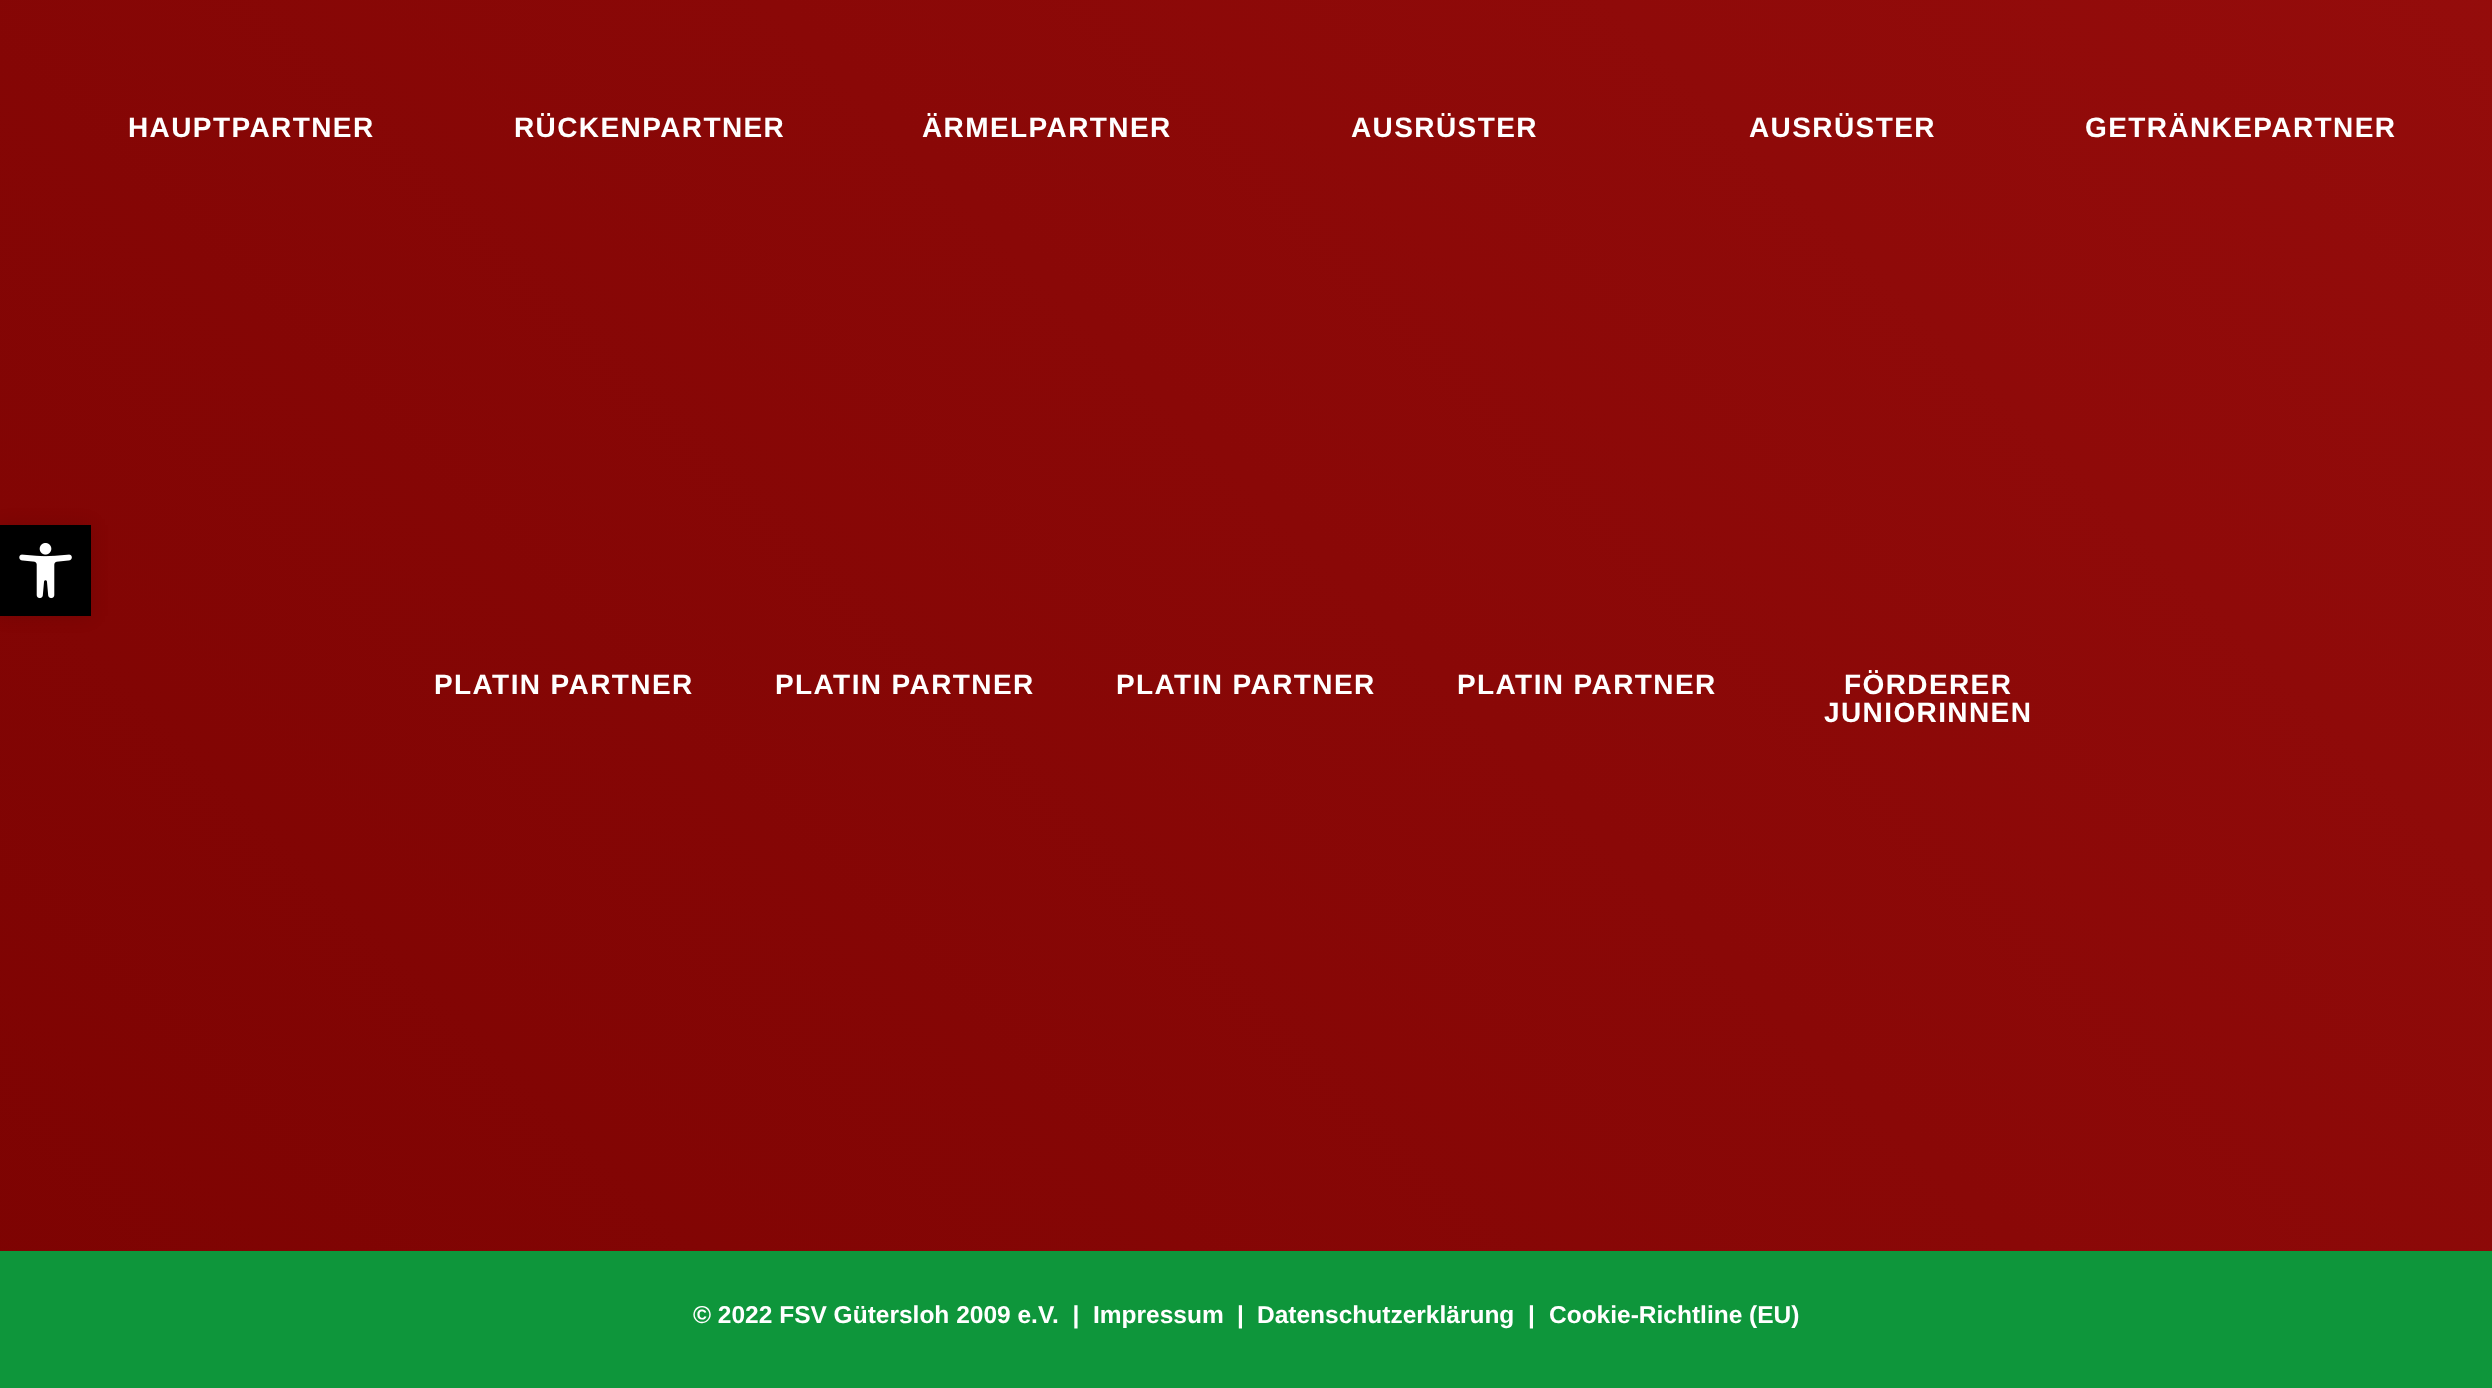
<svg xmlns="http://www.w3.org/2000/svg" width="2492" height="1388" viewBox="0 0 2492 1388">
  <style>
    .t1 { font: bold 28px Liberation Sans; letter-spacing: 1.4px; fill: #fff; }
    .t2 { font: bold 24.5px Liberation Sans; fill: #fff; }
  </style>
  <defs>
    <linearGradient id="g1" gradientUnits="userSpaceOnUse" x1="-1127" y1="263" x2="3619" y2="-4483"><stop offset="0" stop-color="#7d0302"/><stop offset="1" stop-color="#b61918"/></linearGradient>
  </defs>
  <rect width="100%" height="100%" fill="#fff"/>
  <rect x="0" y="0" width="2492" height="1251" fill="url(#g1)"/>
  <rect x="0" y="525" width="91" height="91" fill="#0000001a" filter="blur(9px)"/>
  <rect x="0" y="525" width="91" height="91" fill="#000"/>
  <image x="19" y="543" width="53" height="56" href="images/1.png"/>
  <text x="128" y="137" class="t1">HAUPTPARTNER</text>
  <text x="514" y="137" class="t1">RÜCKENPARTNER</text>
  <text x="922" y="137" class="t1">ÄRMELPARTNER</text>
  <text x="1351" y="137" class="t1">AUSRÜSTER</text>
  <text x="1749" y="137" class="t1">AUSRÜSTER</text>
  <text x="2085" y="137" class="t1">GETRÄNKEPARTNER</text>
  <text x="434" y="694" class="t1">PLATIN PARTNER</text>
  <text x="775" y="694" class="t1">PLATIN PARTNER</text>
  <text x="1116" y="694" class="t1">PLATIN PARTNER</text>
  <text x="1457" y="694" class="t1">PLATIN PARTNER</text>
  <text x="1844" y="694" class="t1">FÖRDERER</text>
  <text x="1824" y="722" class="t1">JUNIORINNEN</text>
  <rect x="0" y="1251" width="2492" height="137" fill="#0e963b"/>
  <text x="693" y="1323" class="t2" xml:space="preserve">© 2022 FSV Gütersloh 2009 e.V.  |</text>
  <text x="1093" y="1323" class="t2">Impressum</text>
  <text x="1237" y="1323" class="t2">|</text>
  <text x="1257" y="1323" class="t2">Datenschutzerklärung</text>
  <text x="1528" y="1323" class="t2">|</text>
  <text x="1549" y="1323" class="t2">Cookie-Richtline (EU)</text>
</svg>
